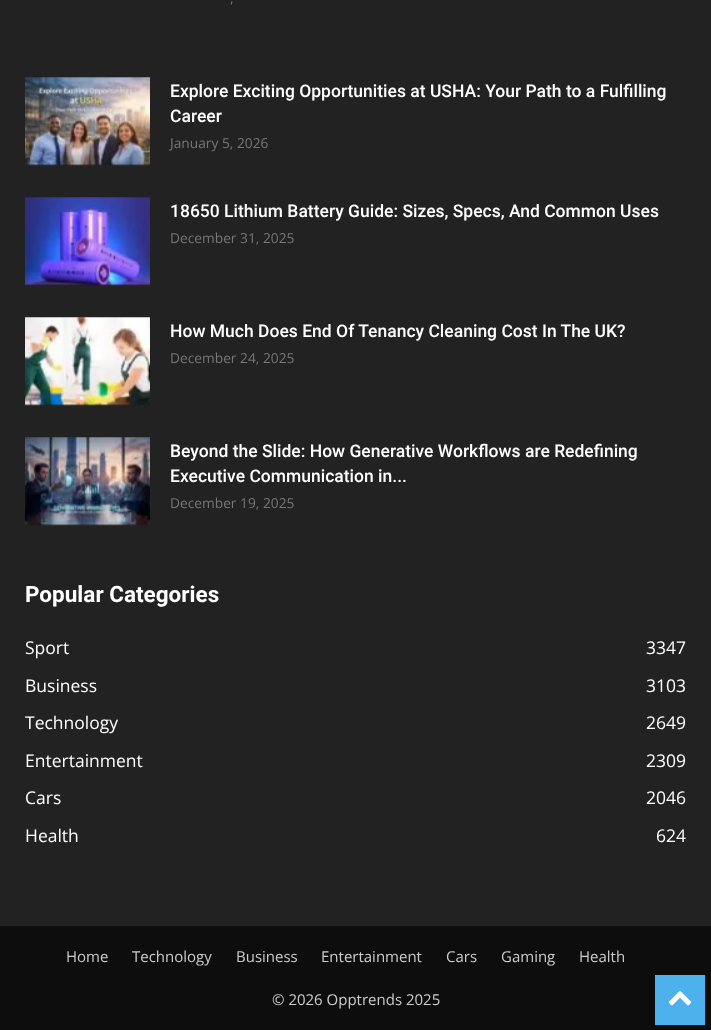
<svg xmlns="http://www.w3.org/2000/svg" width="711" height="1030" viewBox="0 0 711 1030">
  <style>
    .t1 { font: 13.75px Open Sans; fill: #767676; }
    .t2 { font: 500 17.5px Roboto; fill: #fff; }
    .t3 { font: bold 22.5px Roboto; fill: #fff; }
    .t4 { font: 17.5px Open Sans; fill: #fff; }
    .t5 { font: 15px Open Sans; fill: #ccc; }
  </style>
  <rect width="100%" height="100%" fill="#0d0d0d"/>
  <rect x="0" y="0" width="711" height="926" fill="#222"/>
  <text x="230" y="3" class="t1">,</text>
  <image x="25" y="77" width="125" height="89" href="images/1.png"/>
  <text x="170" y="97" class="t2">Explore Exciting Opportunities at USHA: Your Path to a Fulfilling</text>
  <text x="170" y="122" class="t2">Career</text>
  <text x="170" y="148" class="t1">January 5, 2026</text>
  <image x="25" y="197" width="125" height="89" href="images/2.png"/>
  <text x="170" y="217" class="t2">18650 Lithium Battery Guide: Sizes, Specs, And Common Uses</text>
  <text x="170" y="243" class="t1">December 31, 2025</text>
  <image x="25" y="317" width="125" height="89" href="images/3.png"/>
  <text x="170" y="337" class="t2">How Much Does End Of Tenancy Cleaning Cost In The UK?</text>
  <text x="170" y="363" class="t1">December 24, 2025</text>
  <image x="25" y="437" width="125" height="89" href="images/4.png"/>
  <text x="170" y="457" class="t2">Beyond the Slide: How Generative Workflows are Redefining</text>
  <text x="170" y="482" class="t2">Executive Communication in...</text>
  <text x="170" y="508" class="t1">December 19, 2025</text>
  <text x="25" y="602" class="t3">Popular Categories</text>
  <text x="25" y="654" class="t4">Sport</text>
  <text x="646" y="654" class="t4">3347</text>
  <text x="25" y="692" class="t4">Business</text>
  <text x="646" y="692" class="t4">3103</text>
  <text x="25" y="729" class="t4">Technology</text>
  <text x="646" y="729" class="t4">2649</text>
  <text x="25" y="767" class="t4">Entertainment</text>
  <text x="646" y="767" class="t4">2309</text>
  <text x="25" y="804" class="t4">Cars</text>
  <text x="646" y="804" class="t4">2046</text>
  <text x="25" y="842" class="t4">Health</text>
  <text x="656" y="842" class="t4">624</text>
  <text x="66" y="962" class="t5">Home</text>
  <text x="132" y="962" class="t5">Technology</text>
  <text x="236" y="962" class="t5">Business</text>
  <text x="321" y="962" class="t5">Entertainment</text>
  <text x="446" y="962" class="t5">Cars</text>
  <text x="501" y="962" class="t5">Gaming</text>
  <text x="579" y="962" class="t5">Health</text>
  <text x="272" y="1005" class="t5">© 2026 Opptrends 2025</text>
  <rect x="655" y="975" width="50" height="50" fill="#4db2ec"/>
  <image x="668" y="991" width="24" height="15" href="images/5.png"/>
</svg>
